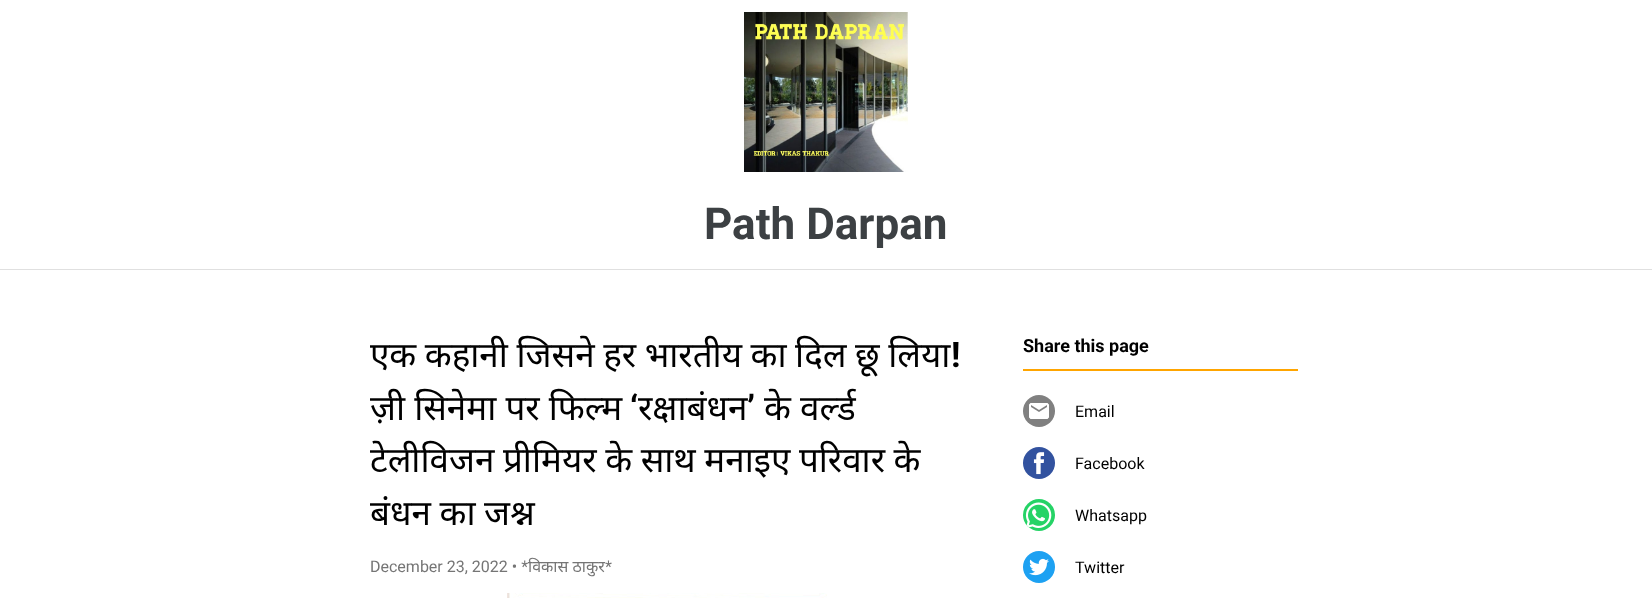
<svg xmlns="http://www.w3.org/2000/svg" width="1652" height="598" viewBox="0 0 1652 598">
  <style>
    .t1 { font: bold 44px Roboto; fill: #3c4043; }
    .t2 { font: 35px Noto Sans; fill: #000; }
    .t3 { font: bold 35px Roboto; fill: #000; }
    .t4 { font: 16px Roboto; fill: #757575; }
    .t5 { font: 16px Noto Sans; fill: #757575; }
    .t6 { font: bold 18px Roboto; fill: #000; }
    .t7 { font: 16px Roboto; fill: #000; }
  </style>
  <defs>
    <clipPath id="clip1"><rect x="370" y="330" width="593" height="210"/></clipPath>
  </defs>
  <rect width="100%" height="100%" fill="#fff"/>
  <rect x="0" y="269" width="1652" height="1" fill="#e0e0e0"/>
  <image x="744" y="12" width="164" height="160" href="images/1.png"/>
  <text x="704" y="239" class="t1">Path Darpan</text>
  <text x="370" y="367" word-spacing="-0.5" class="t2">एक कहानी जिसने हर भारतीय का दिल छू लिया</text>
  <text x="951" y="367" class="t3">!</text>
  <g clip-path="url(#clip1)">
    <text x="370" y="420" class="t2">ज़ी सिनेमा पर फिल्म</text>
  </g>
  <text x="630" y="420" class="t3">‘</text>
  <text x="638" y="420" class="t2">रक्षाबंधन</text>
  <text x="747" y="420" class="t3">’</text>
  <text x="764" y="420" class="t2">के वर्ल्ड</text>
  <g clip-path="url(#clip1)">
    <text x="370" y="472" word-spacing="-0.5" class="t2">टेलीविजन प्रीमियर के साथ मनाइए परिवार के</text>
    <text x="370" y="525" word-spacing="-0.5" class="t2">बंधन का जश्न</text>
  </g>
  <text x="370" y="572" class="t4">December 23, 2022 • *</text>
  <text x="528" y="572" class="t5">विकास ठाकुर</text>
  <text x="605" y="572" class="t4">*</text>
  <image x="507" y="593" width="320" height="5" href="images/2.png"/>
  <rect x="1023" y="369" width="275" height="2" fill="#ffa500"/>
  <text x="1023" y="352" class="t6">Share this page</text>
  <circle cx="1039" cy="411" r="16" fill="#808080"/>
  <image x="1029" y="403" width="20" height="16" href="images/3.png"/>
  <text x="1075" y="417" class="t7">Email</text>
  <circle cx="1039" cy="463" r="16" fill="#32529f"/>
  <image x="1033" y="452" width="12" height="23" href="images/4.png"/>
  <text x="1075" y="469" class="t7">Facebook</text>
  <circle cx="1039" cy="515" r="16" fill="#25d366"/>
  <image x="1025" y="502" width="27" height="26" href="images/5.png"/>
  <text x="1075" y="521" class="t7">Whatsapp</text>
  <circle cx="1039" cy="567" r="16" fill="#1da1f2"/>
  <image x="1029" y="558" width="20" height="18" href="images/6.png"/>
  <text x="1075" y="573" class="t7">Twitter</text>
</svg>
